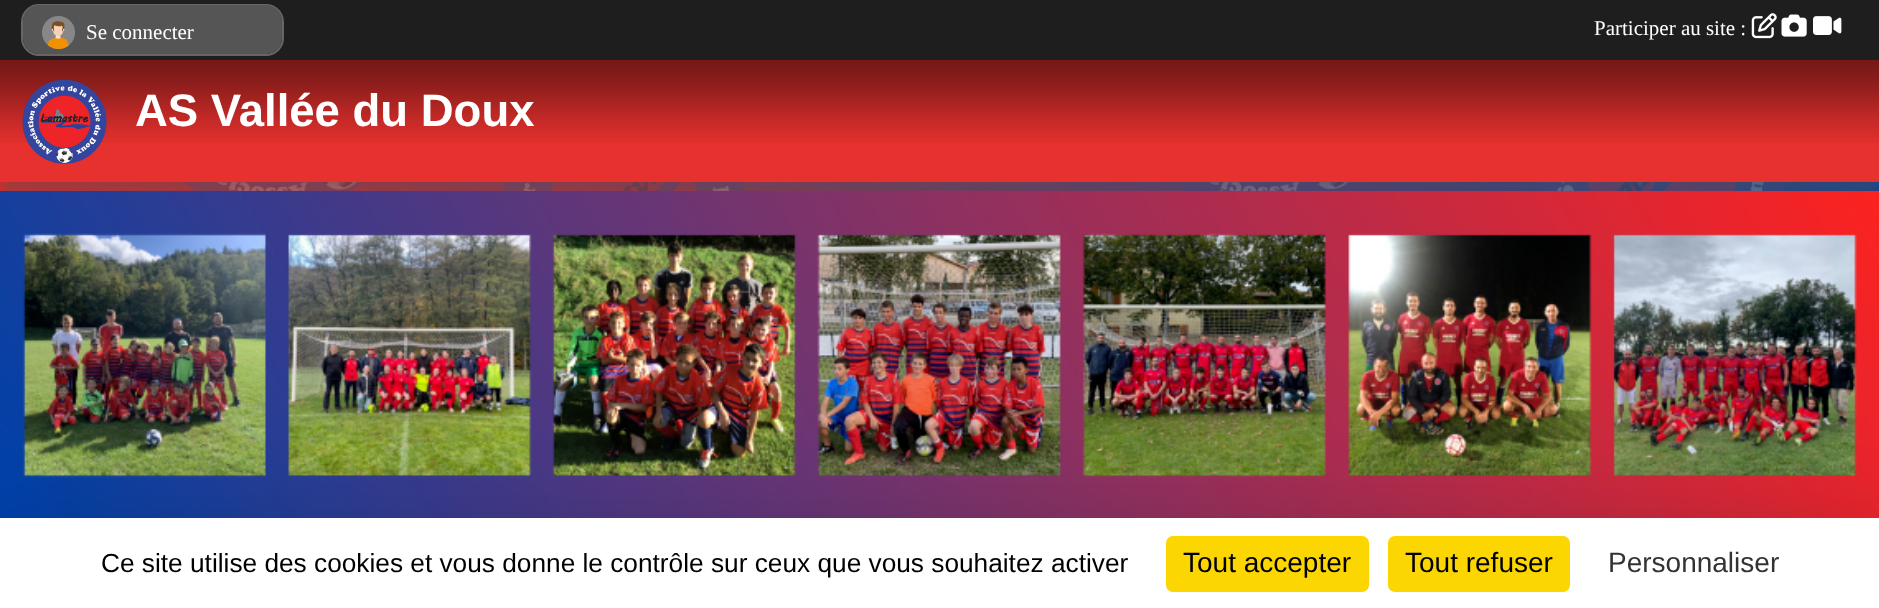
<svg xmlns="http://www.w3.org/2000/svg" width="1879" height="608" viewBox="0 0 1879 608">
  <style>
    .t1 { font: 21px Liberation Serif; fill: #fff; }
    .t2 { font: bold 45.5px Liberation Sans; fill: #fff; }
    .t3 { font: 26.25px Liberation Sans; fill: #000; }
    .t4 { font: 28px Liberation Sans; fill: #000; }
    .t5 { font: 28px Liberation Sans; fill: #333; }
  </style>
  <rect width="100%" height="100%" fill="#fff"/>
  <image x="0" y="182" width="1879" height="9" href="images/1.png"/>
  <rect x="0" y="72" width="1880" height="122" fill="#50505080" filter="blur(4.5px)"/>
  <rect x="0" y="0" width="1879" height="60" fill="#1e1e1e"/>
  <rect x="22" y="5" width="261" height="50" rx="17" fill="none" stroke="#666" stroke-width="2"/>
  <rect x="23" y="5" width="259" height="49" rx="16" fill="#555"/>
  <image x="42" y="16" width="33" height="33" href="images/2.png"/>
  <text x="86" y="39" class="t1">Se connecter</text>
  <text x="1594" y="35" class="t1">Participer au site :</text>
  <image x="1751" y="13" width="26" height="26" href="images/3.png"/>
  <image x="1781" y="14" width="26" height="23" href="images/4.png"/>
  <image x="1813" y="16" width="29" height="19" href="images/5.png"/>
  <rect x="0" y="60" width="1879" height="122" fill="#e6312e"/>
  <image x="0" y="60" width="1879" height="83" href="images/6.png"/>
  <image x="22" y="79" width="85" height="85" href="images/7.png"/>
  <text x="135" y="126" class="t2">AS Vallée du Doux</text>
  <image x="0" y="190" width="1879" height="328" href="images/8.png"/>
  <rect x="0" y="553" width="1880" height="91" fill="#00000040" filter="blur(52.5px)"/>
  <rect x="0" y="518" width="1879" height="90" fill="#fff"/>
  <text x="101" y="572" class="t3">Ce site utilise des cookies et vous donne le contrôle sur ceux que vous souhaitez activer</text>
  <rect x="1166" y="536" width="203" height="56" rx="7" fill="#fbd600"/>
  <text x="1183" y="572" class="t4">Tout accepter</text>
  <rect x="1388" y="536" width="182" height="56" rx="7" fill="#fbd600"/>
  <text x="1405" y="572" class="t4">Tout refuser</text>
  <text x="1608" y="572" class="t5">Personnaliser</text>
</svg>
